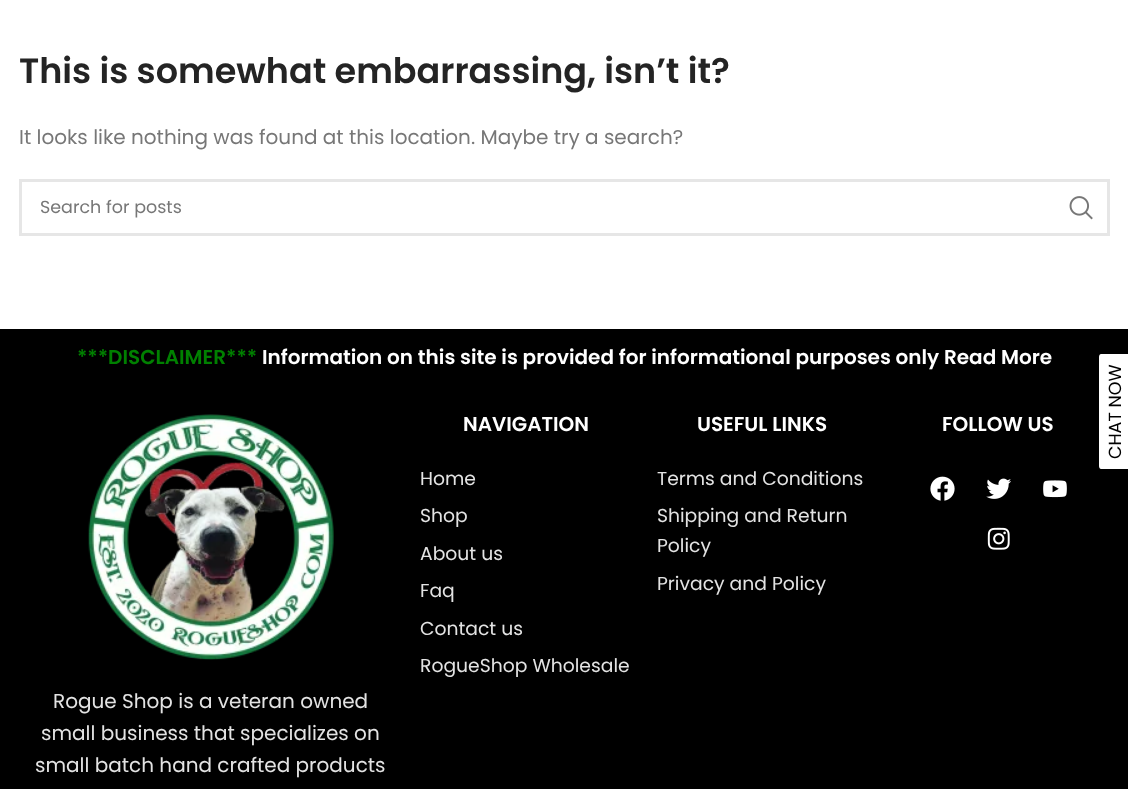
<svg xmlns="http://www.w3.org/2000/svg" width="1128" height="789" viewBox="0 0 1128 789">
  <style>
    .t1 { font: 600 35px Poppins; fill: #242424; }
    .t2 { font: 20px Poppins; fill: #777; }
    .t3 { font: 17.5px Poppins; fill: #777; }
    .t4 { font: 600 20px Poppins; fill: #008000; }
    .t5 { font: 600 20px Poppins; fill: #fff; }
    .t6 { font: 18.75px Poppins; fill: #e3e3e3; }
    .t7 { font: 20px Poppins; fill: #e3e3e3; }
    .t8 { font: 17.5px Poppins; fill: #000; }
  </style>
  <rect width="100%" height="100%" fill="#fff"/>
  <text x="19" y="83" class="t1">This is somewhat embarrassing, isn’t it?</text>
  <text x="19" y="144" class="t2">It looks like nothing was found at this location. Maybe try a search?</text>
  <rect x="20.5" y="180.5" width="1088" height="54" fill="none" stroke="#e6e6e6" stroke-width="3"/>
  <text x="40" y="213" class="t3">Search for posts</text>
  <image x="1069" y="196" width="24" height="24" href="images/1.png"/>
  <rect x="0" y="329" width="1128" height="460" fill="#000"/>
  <text x="77" y="364" class="t4">***DISCLAIMER***</text>
  <text x="262" y="364" class="t5">Information on this site is provided for informational purposes only Read More</text>
  <text x="463" y="431" class="t5">NAVIGATION</text>
  <text x="420" y="485" class="t6">Home</text>
  <text x="420" y="522" class="t6">Shop</text>
  <text x="420" y="560" class="t6">About us</text>
  <text x="420" y="597" class="t6">Faq</text>
  <text x="420" y="635" class="t6">Contact us</text>
  <text x="420" y="672" class="t6">RogueShop Wholesale</text>
  <text x="697" y="431" class="t5">USEFUL LINKS</text>
  <text x="657" y="485" class="t6">Terms and Conditions</text>
  <text x="657" y="522" class="t6">Shipping and Return</text>
  <text x="657" y="552" class="t6">Policy</text>
  <text x="657" y="590" class="t6">Privacy and Policy</text>
  <text x="942" y="431" class="t5">FOLLOW US</text>
  <image x="930" y="476" width="25" height="25" href="images/2.png"/>
  <image x="986" y="478" width="25" height="21" href="images/3.png"/>
  <image x="1043" y="480" width="24" height="18" href="images/4.png"/>
  <image x="987" y="527" width="23" height="23" href="images/5.png"/>
  <image x="88" y="414" width="246" height="246" href="images/6.png"/>
  <text x="53" y="708" class="t7">Rogue Shop is a veteran owned</text>
  <text x="41" y="740" class="t7">small business that specializes on</text>
  <text x="35" y="772" class="t7">small batch hand crafted products</text>
  <path d="M1099 466V357C1099 355 1100 354 1101 354H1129C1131 354 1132 355 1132 357V466C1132 468 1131 469 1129 469H1101C1100 469 1099 468 1099 466Z" fill="#fff"/>
  <text x="1121" y="459" transform="rotate(-90 1121 459)" class="t8">CHAT NOW</text>
</svg>
